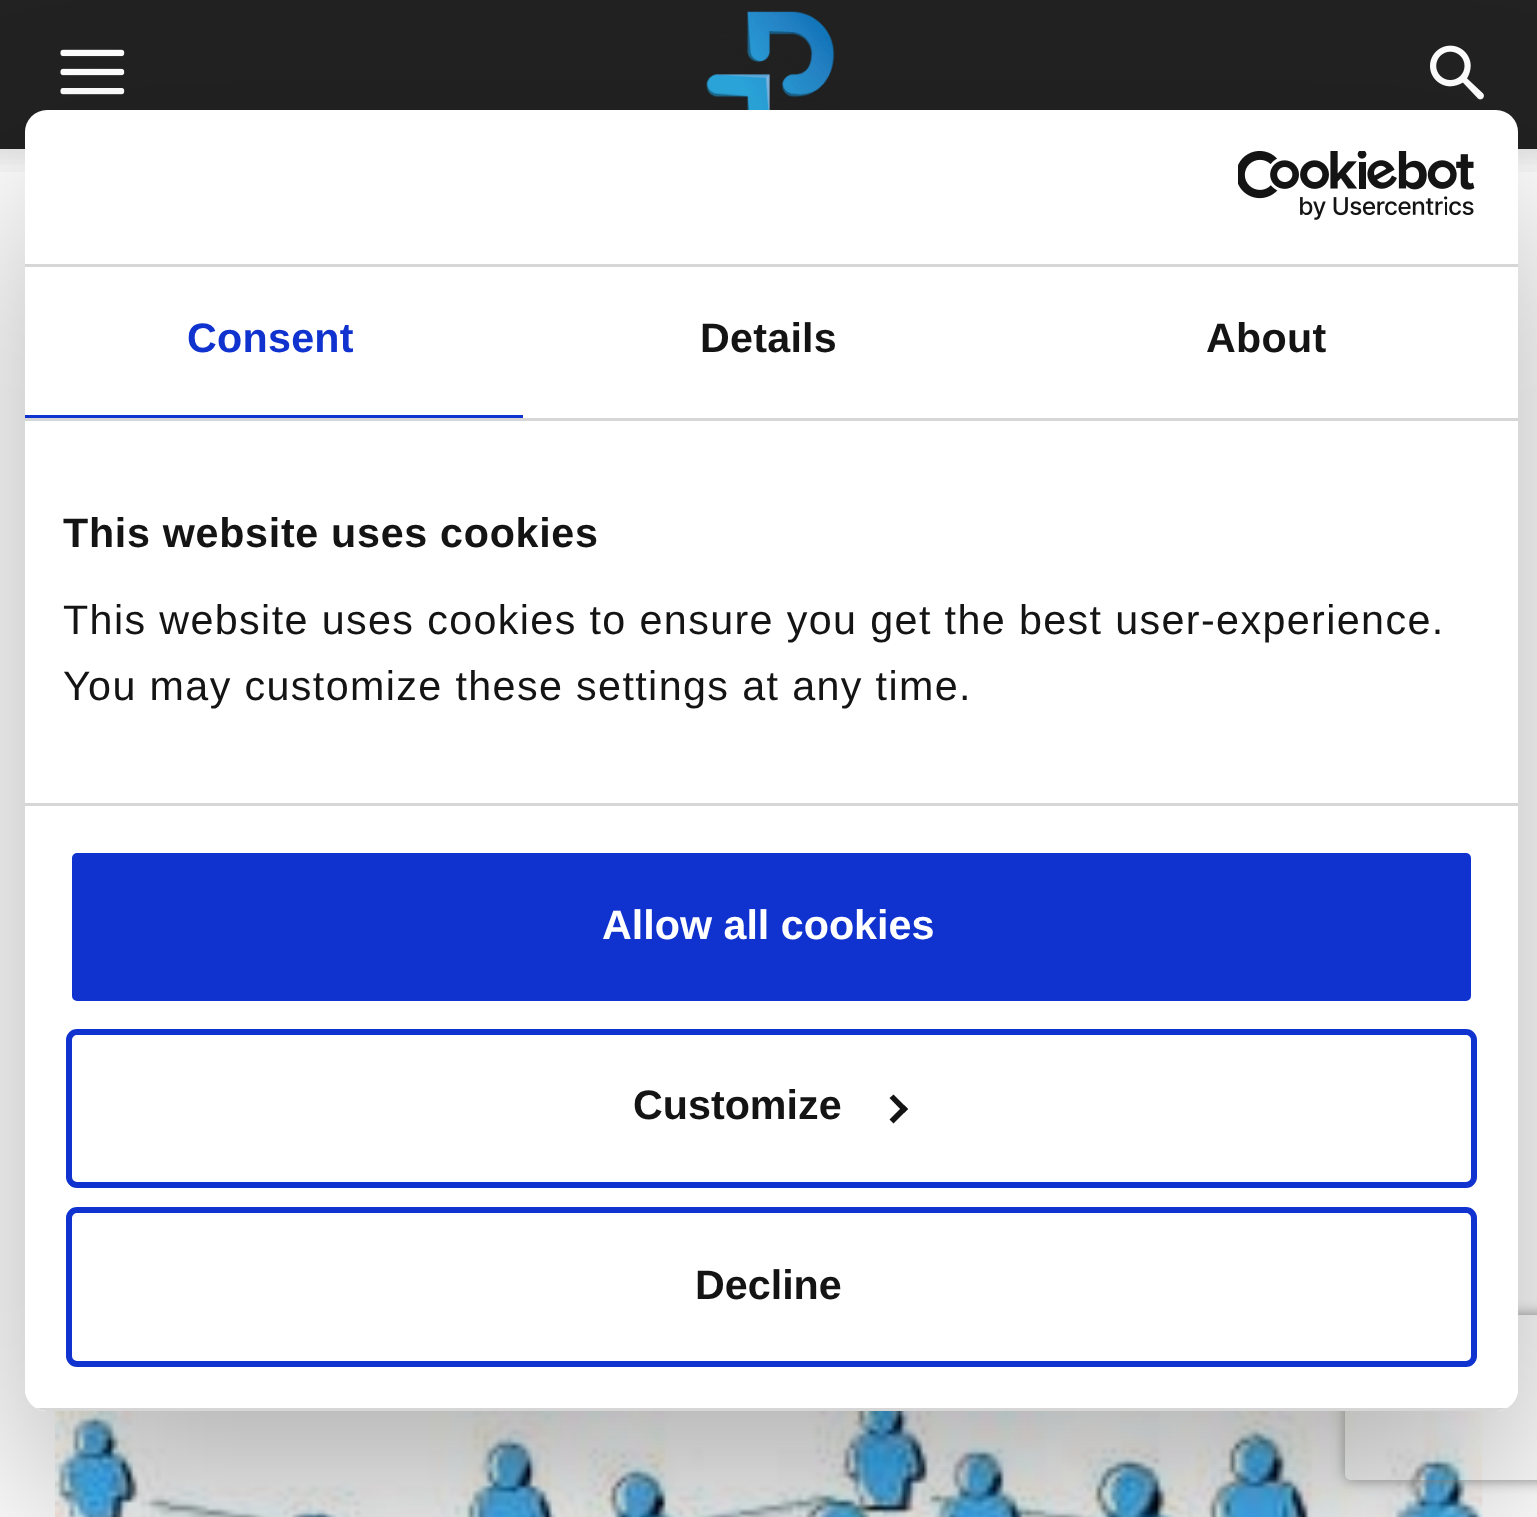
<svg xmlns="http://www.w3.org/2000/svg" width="1537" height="1517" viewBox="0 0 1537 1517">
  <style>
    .t1 { font: bold 41.25px Liberation Sans; letter-spacing: 0.25px; fill: #1032cf; }
    .t2 { font: bold 41.25px Liberation Sans; letter-spacing: 0.25px; fill: #141414; }
    .t3 { font: bold 41.25px Liberation Sans; letter-spacing: 0.7px; fill: #141414; }
    .t4 { font: 41.25px Liberation Sans; letter-spacing: 1.38px; fill: #141414; }
    .t5 { font: bold 41.25px Liberation Sans; fill: #fff; }
    .t6 { font: bold 41.25px Liberation Sans; fill: #141414; }
  </style>
  <defs>
    <clipPath id="clip1"><path d="M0 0H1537V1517H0ZM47 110H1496C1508 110 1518 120 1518 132V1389C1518 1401 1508 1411 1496 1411H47C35 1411 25 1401 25 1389V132C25 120 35 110 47 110Z" clip-rule="evenodd"/></clipPath>
    <clipPath id="clip2"><path d="M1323 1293H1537V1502H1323ZM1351 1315H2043C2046.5 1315 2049 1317.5 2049 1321V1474C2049 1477.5 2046.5 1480 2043 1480H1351C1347.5 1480 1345 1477.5 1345 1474V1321C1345 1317.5 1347.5 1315 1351 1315Z" clip-rule="evenodd"/></clipPath>
    <clipPath id="clip3"><rect x="25" y="110" width="1493" height="1301" rx="22"/></clipPath>
  </defs>
  <rect width="100%" height="100%" fill="#fff"/>
  <rect x="0" y="0" width="1537" height="149" fill="#222"/>
  <image x="60" y="49" width="65" height="46" href="images/1.png"/>
  <image x="706" y="11" width="129" height="99" href="images/2.png"/>
  <image x="1430" y="45" width="54" height="55" href="images/3.png"/>
  <image x="0" y="149" width="1537" height="23" href="images/4.png"/>
  <image x="55" y="1411" width="1428" height="106" href="images/5.png"/>
  <g clip-path="url(#clip1)">
    <rect x="25" y="198" width="1493" height="1301" rx="22" fill="#0000004d" filter="blur(93.5px)"/>
  </g>
  <g clip-path="url(#clip2)">
    <rect x="1345" y="1315" width="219" height="165" rx="6" fill="#808080" filter="blur(7px)"/>
  </g>
  <rect x="25" y="110" width="1493" height="1301" rx="22" fill="#fff"/>
  <rect x="25" y="264" width="1493" height="3" fill="#d6d6d6"/>
  <image x="1238" y="151" width="237" height="69" href="images/6.png"/>
  <rect x="25" y="418" width="1493" height="3" fill="#d6d6d6"/>
  <rect x="25" y="415" width="498" height="3" fill="#1032cf"/>
  <text x="187" y="352" class="t1">Consent</text>
  <text x="700" y="352" class="t2">Details</text>
  <text x="1206" y="352" class="t2">About</text>
  <rect x="25" y="803" width="1493" height="3" fill="#d6d6d6"/>
  <text x="63" y="547" class="t3">This website uses cookies</text>
  <text x="63" y="634" class="t4">This website uses cookies to ensure you get the best user-experience.</text>
  <text x="63" y="700" class="t4">You may customize these settings at any time.</text>
  <g clip-path="url(#clip3)">
    <rect x="36" y="1408" width="1471" height="3" fill="#d6d6d6"/>
  </g>
  <rect x="69" y="850" width="1405" height="154" rx="8" fill="#1032cf" stroke="#fff" stroke-width="6"/>
  <text x="602" y="939" class="t5">Allow all cookies</text>
  <rect x="69" y="1032" width="1405" height="153" rx="8" fill="none" stroke="#1032cf" stroke-width="6"/>
  <text x="633" y="1119" class="t6">Customize</text>
  <path d="M893.5 1094.5L908 1109L904 1113L889.5 1098Z" fill="#141414"/>
  <path d="M904 1105L908 1109L893.5 1123.5L889.5 1119.5Z" fill="#141414"/>
  <rect x="69" y="1210" width="1405" height="154" rx="8" fill="none" stroke="#1032cf" stroke-width="6"/>
  <text x="695" y="1299" class="t6">Decline</text>
</svg>
